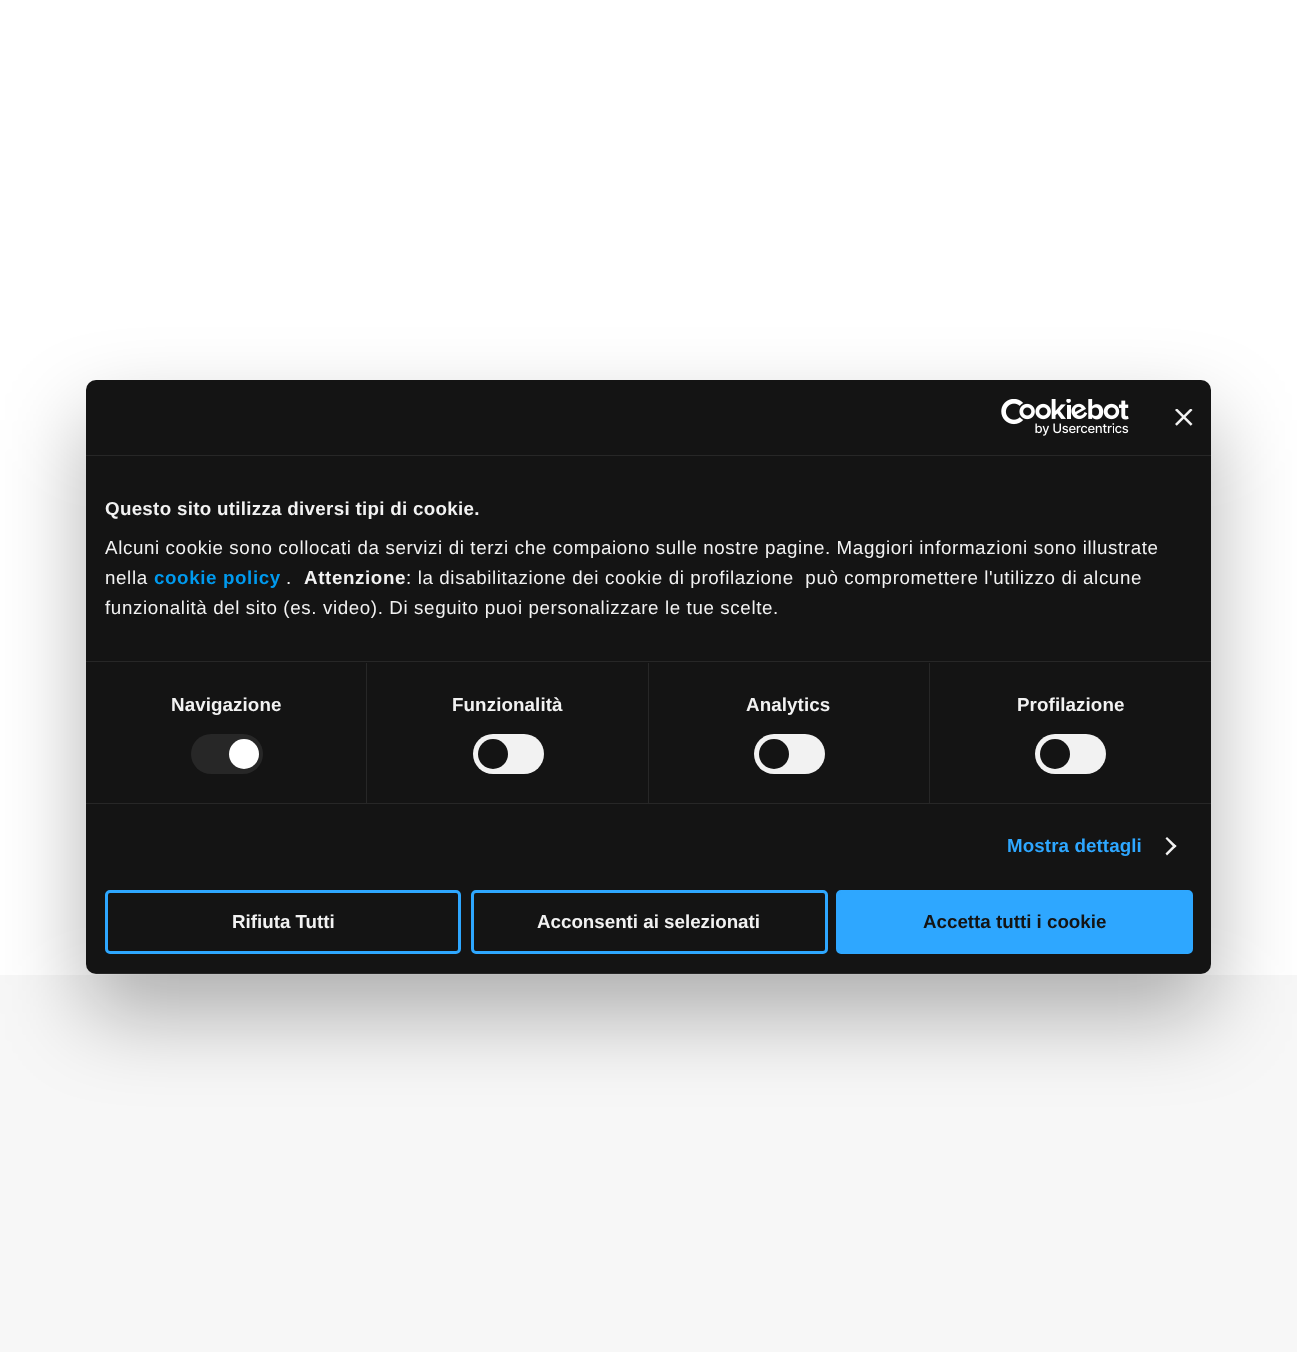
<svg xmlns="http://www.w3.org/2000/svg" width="1297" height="1352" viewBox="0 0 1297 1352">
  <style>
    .t1 { font: bold 18.75px Liberation Sans; letter-spacing: 0.3px; fill: #f2f2f2; }
    .t2 { font: 18.75px Liberation Sans; letter-spacing: 0.62px; fill: #f2f2f2; }
    .t3 { font: bold 18.75px Liberation Sans; letter-spacing: 0.62px; fill: #009aee; }
    .t4 { font: bold 18.75px Liberation Sans; letter-spacing: 0.62px; fill: #f2f2f2; }
    .t5 { font: bold 18.75px Liberation Sans; letter-spacing: 0.1px; fill: #f2f2f2; }
    .t6 { font: bold 18.75px Liberation Sans; letter-spacing: 0.1px; fill: #2ea7ff; }
    .t7 { font: bold 18.75px Liberation Sans; fill: #f2f2f2; }
    .t8 { font: bold 18.75px Liberation Sans; fill: #141414; }
  </style>
  <defs>
    <clipPath id="clip1"><rect x="86" y="380" width="1125" height="594" rx="10"/></clipPath>
  </defs>
  <rect width="100%" height="100%" fill="#f7f7f7"/>
  <rect x="0" y="0" width="1297" height="975" fill="#fff"/>
  <rect x="86" y="420" width="1125" height="594" rx="10" fill="#0000004d" filter="blur(42.5px)"/>
  <rect x="86" y="380" width="1125" height="594" rx="10" fill="#141414"/>
  <rect x="86" y="455" width="1125" height="1" fill="#272727"/>
  <image x="1001" y="399" width="128" height="37" href="images/1.png"/>
  <image x="1175" y="409" width="18" height="17" href="images/2.png"/>
  <rect x="86" y="661" width="1125" height="1" fill="#272727"/>
  <text x="105" y="515" class="t1">Questo sito utilizza diversi tipi di cookie.</text>
  <text x="105" y="554" class="t2">Alcuni cookie sono collocati da servizi di terzi che compaiono sulle nostre pagine. Maggiori informazioni sono illustrate</text>
  <text x="105" y="584" class="t2">nella</text>
  <text x="154" y="584" class="t3">cookie policy</text>
  <text x="286" y="584" class="t2">.</text>
  <text x="304" y="584" class="t4">Attenzione</text>
  <text x="406" y="584" class="t2" xml:space="preserve">: la disabilitazione dei cookie di profilazione  può compromettere l'utilizzo di alcune</text>
  <text x="105" y="614" class="t2">funzionalità del sito (es. video). Di seguito puoi personalizzare le tue scelte.</text>
  <rect x="86" y="803" width="1125" height="1" fill="#272727"/>
  <rect x="366" y="663" width="1" height="140" fill="#272727"/>
  <text x="171" y="711" class="t5">Navigazione</text>
  <rect x="191" y="734" width="72" height="40" rx="20" fill="#272727"/>
  <circle cx="244" cy="754" r="15" fill="#fff"/>
  <rect x="648" y="663" width="1" height="140" fill="#272727"/>
  <text x="452" y="711" class="t5">Funzionalità</text>
  <rect x="473" y="734" width="71" height="40" rx="20" fill="#f2f2f2"/>
  <circle cx="493" cy="754" r="15" fill="#141414"/>
  <rect x="929" y="663" width="1" height="140" fill="#272727"/>
  <text x="746" y="711" class="t5">Analytics</text>
  <rect x="754" y="734" width="71" height="40" rx="20" fill="#f2f2f2"/>
  <circle cx="774" cy="754" r="15" fill="#141414"/>
  <text x="1017" y="711" class="t5">Profilazione</text>
  <rect x="1035" y="734" width="71" height="40" rx="20" fill="#f2f2f2"/>
  <circle cx="1055" cy="754" r="15" fill="#141414"/>
  <text x="1007" y="852" class="t6">Mostra dettagli</text>
  <path d="M1167 837L1176.5 846L1174.5 848L1165.5 838.5Z" fill="#f2f2f2"/>
  <path d="M1174.5 844.5L1176.5 846L1167 855.5L1165.5 853.5Z" fill="#f2f2f2"/>
  <g clip-path="url(#clip1)">
    <rect x="86" y="973" width="1125" height="1" fill="#ffffff14"/>
  </g>
  <rect x="106.5" y="891.5" width="353" height="61" rx="3.5" fill="none" stroke="#2ea7ff" stroke-width="3"/>
  <text x="232" y="928" class="t7">Rifiuta Tutti</text>
  <rect x="472.5" y="891.5" width="354" height="61" rx="3.5" fill="none" stroke="#2ea7ff" stroke-width="3"/>
  <text x="537" y="928" class="t7">Acconsenti ai selezionati</text>
  <rect x="837.5" y="891.5" width="354" height="61" rx="3.5" fill="#2ea7ff" stroke="#2ea7ff" stroke-width="3"/>
  <text x="923" y="928" class="t8">Accetta tutti i cookie</text>
</svg>
